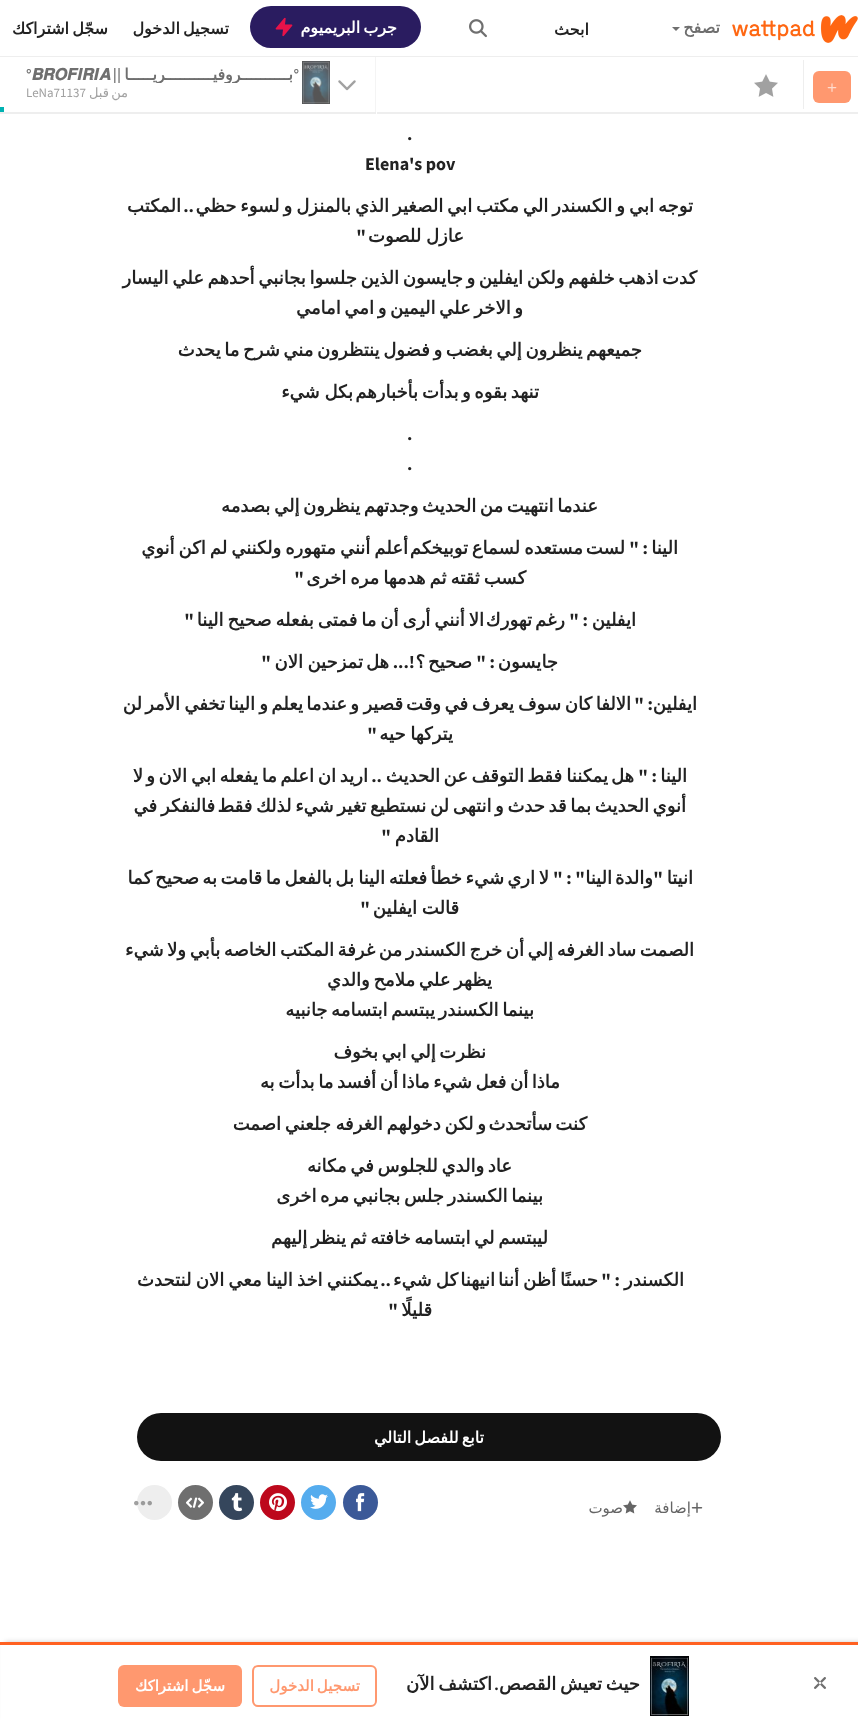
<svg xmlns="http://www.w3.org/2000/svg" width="858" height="1720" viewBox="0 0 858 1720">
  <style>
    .t1 { font: bold 16px DejaVu Sans; direction: rtl; fill: #6f6f6f; }
    .t2 { font: bold 16px DejaVu Sans; direction: rtl; fill: #222; }
    .t3 { font: bold 16px DejaVu Sans; direction: rtl; fill: #fff; }
    .t4 { font: 600 16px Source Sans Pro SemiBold; direction: rtl; fill: #6f6f6f; }
    .t5 { font: bold 16px FreeSans; fill: #6f6f6f; }
    .t6 { font: 600 16px Source Sans Pro SemiBold; fill: #6f6f6f; }
    .t7 { font: 13px DejaVu Sans; direction: rtl; fill: #a1a1a1; }
    .t8 { font: 13px Source Sans Pro; fill: #a1a1a1; }
    .t9 { font: bold 18px Source Sans Pro; fill: #222; }
    .t10 { font: bold 18px DejaVu Sans; direction: rtl; fill: #222; }
    .t11 { font: bold 18px Source Sans Pro; direction: rtl; fill: #222; }
    .t12 { font: 15px DejaVu Sans; direction: rtl; fill: #656565; }
    .t13 { font: 600 18px Source Sans Pro SemiBold; direction: rtl; fill: #222; }
    .t14 { font: bold 15px DejaVu Sans; direction: rtl; fill: #ff986f; }
    .t15 { font: bold 15px DejaVu Sans; direction: rtl; fill: #fff; }
  </style>
  <defs>
    <clipPath id="clip1"><rect x="26" y="65" width="273" height="18"/></clipPath>
  </defs>
  <rect width="100%" height="100%" fill="#fff"/>
  <rect x="0" y="112" width="858" height="2" fill="#eee"/>
  <path d="M376 54V114L375 112V56Z" fill="#eeeeeea6"/>
  <rect x="375" y="54" width="1" height="2" fill="#fff"/>
  <rect x="0" y="56" width="858" height="1" fill="#eee"/>
  <image x="732" y="15" width="126" height="28" href="images/1.png"/>
  <text x="720" y="33" class="t1">تصفح</text>
  <path d="M672 27H680L676 31Z" fill="#6f6f6f"/>
  <text x="589" y="35" class="t2">ابحث</text>
  <image x="469" y="19" width="18" height="19" href="images/2.png"/>
  <rect x="250" y="6" width="171" height="42" rx="21" fill="#2a1c60"/>
  <text x="397" y="33" word-spacing="-2" class="t3">جرب البريميوم</text>
  <image x="275" y="17" width="18" height="20" href="images/3.png"/>
  <text x="229" y="34" word-spacing="-2" class="t2">تسجيل الدخول</text>
  <text x="108" y="34" word-spacing="-2" class="t2">سجّل اشتراكك</text>
  <rect x="813" y="71" width="38" height="32" rx="6" fill="#ff986f"/>
  <image x="827" y="83" width="10" height="9" href="images/4.png"/>
  <rect x="803" y="60" width="1" height="49" fill="#eee"/>
  <image x="754" y="74" width="24" height="23" href="images/5.png"/>
  <rect x="376" y="112" width="1" height="2" fill="#fff"/>
  <image x="338" y="80" width="18" height="11" href="images/6.png"/>
  <rect x="302" y="61" width="28" height="43" fill="#f4f4f4"/>
  <image x="302" y="61" width="28" height="43" href="images/7.png"/>
  <text x="299" y="80" class="t4">°</text>
  <g clip-path="url(#clip1)">
    <text x="293" y="80" class="t1">بــــــــــروفيــــــــــريـــــا</text>
    <text x="121" y="80" class="t4">||</text>
  </g>
  <text x="32" y="80" class="t5">𝑩𝑹𝑶𝑭𝑰𝑹𝑰𝑨</text>
  <text x="26" y="80" class="t6">°</text>
  <text x="128" y="97" word-spacing="-2" class="t7">من قبل</text>
  <text x="26" y="97" class="t8">LeNa71137</text>
  <rect x="0" y="107" width="4" height="5" fill="#00b2b2"/>
  <text x="407" y="140" class="t9">.</text>
  <text x="365" y="170" class="t9">Elena's pov</text>
  <text x="693" y="212" word-spacing="-1.75" class="t10">توجه ابي و الكسندر الي مكتب ابي الصغير الذي بالمنزل و لسوء حظي</text>
  <text x="194" y="212" class="t11">..</text>
  <text x="181" y="212" class="t10">المكتب</text>
  <text x="464" y="242" word-spacing="-1" class="t10">عازل للصوت</text>
  <text x="366" y="242" class="t11">"</text>
  <text x="697" y="284" word-spacing="-2.1" class="t10">كدت اذهب خلفهم ولكن ايفلين و جايسون الذين جلسوا بجانبي أحدهم علي اليسار</text>
  <text x="523" y="314" word-spacing="-2.1" class="t10">و الاخر علي اليمين و امي امامي</text>
  <text x="642" y="356" word-spacing="-2.1" class="t10">جميعهم ينظرون إلي بغضب و فضول ينتظرون مني شرح ما يحدث</text>
  <text x="539" y="398" word-spacing="-2.1" class="t10">تنهد بقوه و بدأت</text>
  <text x="418" y="398" class="t10">بأخبارهم</text>
  <text x="353" y="398" word-spacing="-1" class="t10">بكل شيء</text>
  <text x="407" y="440" class="t9">.</text>
  <text x="407" y="470" class="t9">.</text>
  <text x="598" y="512" word-spacing="-2.1" class="t10">عندما انتهيت من الحديث وجدتهم ينظرون إلي بصدمه</text>
  <text x="678" y="554" class="t10">الينا</text>
  <text x="648" y="554" class="t11">: "</text>
  <text x="625" y="554" class="t10">لست</text>
  <text x="583" y="554" class="t10">مستعده</text>
  <text x="520" y="554" class="t10">لسماع</text>
  <text x="468" y="554" class="t10">توبيخكم</text>
  <text x="408" y="554" word-spacing="-1.75" class="t10">أعلم أنني متهوره ولكنني لم اكن أنوي</text>
  <text x="526" y="584" word-spacing="-1.75" class="t10">كسب ثقته ثم هدمها مره اخرى</text>
  <text x="304" y="584" class="t11">"</text>
  <text x="636" y="626" class="t10">ايفلين</text>
  <text x="588" y="626" class="t11">: "</text>
  <text x="565" y="626" class="t10">رغم</text>
  <text x="532" y="626" class="t10">تهورك</text>
  <text x="484" y="626" word-spacing="-1.75" class="t10">الا أنني أرى أن ما فمتى بفعله صحيح الينا</text>
  <text x="194" y="626" class="t11">"</text>
  <text x="558" y="668" class="t10">جايسون</text>
  <text x="495" y="668" class="t11">: "</text>
  <text x="472" y="668" class="t10">صحيح</text>
  <text x="425" y="668" class="t10">؟</text>
  <text x="415" y="668" class="t11">!...</text>
  <text x="389" y="668" class="t10">هل</text>
  <text x="363" y="668" class="t10">تمزحين</text>
  <text x="303" y="668" class="t10">الان</text>
  <text x="271" y="668" class="t11">"</text>
  <text x="697" y="710" class="t10">ايفلين</text>
  <text x="653" y="710" class="t11">: "</text>
  <text x="631" y="710" class="t10">الالفا</text>
  <text x="592" y="710" class="t10">كان</text>
  <text x="561" y="710" class="t10">سوف</text>
  <text x="514" y="710" class="t10">يعرف</text>
  <text x="468" y="710" class="t10">في</text>
  <text x="441" y="710" class="t10">وقت</text>
  <text x="403" y="710" class="t10">قصير</text>
  <text x="359" y="710" class="t10">و</text>
  <text x="347" y="710" class="t10">عندما</text>
  <text x="303" y="710" class="t10">يعلم</text>
  <text x="268" y="710" class="t10">و</text>
  <text x="255" y="710" class="t10">الينا</text>
  <text x="225" y="710" class="t10">تخفي</text>
  <text x="180" y="710" class="t10">الأمر</text>
  <text x="142" y="710" class="t10">لن</text>
  <text x="453" y="740" word-spacing="-1" class="t10">يتركها حيه</text>
  <text x="377" y="740" class="t11">"</text>
  <text x="687" y="782" class="t10">الينا</text>
  <text x="657" y="782" class="t11">: "</text>
  <text x="634" y="782" class="t10">هل</text>
  <text x="608" y="782" class="t10">يمكننا</text>
  <text x="562" y="782" class="t10">فقط</text>
  <text x="524" y="782" class="t10">التوقف</text>
  <text x="468" y="782" class="t10">عن</text>
  <text x="440" y="782" class="t10">الحديث</text>
  <text x="382" y="782" class="t11">..</text>
  <text x="368" y="782" class="t10">اريد</text>
  <text x="336" y="782" class="t10">ان</text>
  <text x="314" y="782" class="t10">اعلم</text>
  <text x="277" y="782" class="t10">ما</text>
  <text x="258" y="782" class="t10">يفعله</text>
  <text x="216" y="782" class="t10">ابي</text>
  <text x="187" y="782" class="t10">الان</text>
  <text x="155" y="782" class="t10">و</text>
  <text x="143" y="782" class="t10">لا</text>
  <text x="686" y="812" word-spacing="-2.1" class="t10">أنوي الحديث بما قد حدث و انتهى لن نستطيع تغير شيء لذلك فقط</text>
  <text x="215" y="812" class="t10">فالنفكر</text>
  <text x="157" y="812" class="t10">في</text>
  <text x="439" y="842" class="t10">القادم</text>
  <text x="391" y="842" class="t11">"</text>
  <text x="693" y="884" class="t10">انيتا</text>
  <text x="663" y="884" class="t11">"</text>
  <text x="653" y="884" class="t10">والدة</text>
  <text x="612" y="884" class="t10">الينا</text>
  <text x="585" y="884" class="t11">" : "</text>
  <text x="549" y="884" class="t10">لا</text>
  <text x="535" y="884" class="t10">اري</text>
  <text x="504" y="884" class="t10">شيء</text>
  <text x="462" y="884" class="t10">خطأ</text>
  <text x="427" y="884" class="t10">فعلته</text>
  <text x="385" y="884" class="t10">الينا</text>
  <text x="354" y="884" class="t10">بل</text>
  <text x="332" y="884" class="t10">بالفعل</text>
  <text x="281" y="884" class="t10">ما</text>
  <text x="262" y="884" class="t10">قامت</text>
  <text x="217" y="884" class="t10">به</text>
  <text x="199" y="884" class="t10">صحيح</text>
  <text x="152" y="884" class="t10">كما</text>
  <text x="459" y="914" word-spacing="-1" class="t10">قالت ايفلين</text>
  <text x="370" y="914" class="t11">"</text>
  <text x="694" y="956" word-spacing="-2.1" class="t10">الصمت ساد الغرفه إلي أن خرج الكسندر من غرفة المكتب الخاصه بأبي ولا شيء</text>
  <text x="492" y="986" word-spacing="-2.1" class="t10">يظهر علي ملامح والدي</text>
  <text x="534" y="1016" word-spacing="-2.1" class="t10">بينما الكسندر يبتسم ابتسامه جانبيه</text>
  <text x="486" y="1058" word-spacing="-2.1" class="t10">نظرت إلي ابي بخوف</text>
  <text x="560" y="1088" word-spacing="-2.1" class="t10">ماذا أن فعل شيء ماذا أن أفسد ما بدأت به</text>
  <text x="587" y="1130" class="t10">كنت</text>
  <text x="552" y="1130" class="t10">سأتحدث</text>
  <text x="486" y="1130" word-spacing="-2" class="t10">و لكن دخولهم الغرفه</text>
  <text x="331" y="1130" class="t10">جلعني</text>
  <text x="281" y="1130" class="t10">اصمت</text>
  <text x="512" y="1172" word-spacing="-2.1" class="t10">عاد والدي للجلوس في مكانه</text>
  <text x="543" y="1202" word-spacing="-2.1" class="t10">بينما الكسندر جلس بجانبي مره اخرى</text>
  <text x="548" y="1244" word-spacing="-2.1" class="t10">ليبتسم لي ابتسامه خافته ثم ينظر إليهم</text>
  <text x="684" y="1286" class="t10">الكسندر</text>
  <text x="620" y="1286" class="t11">: "</text>
  <text x="598" y="1286" class="t10">حسنًا</text>
  <text x="556" y="1286" class="t10">أظن</text>
  <text x="519" y="1286" class="t10">أننا</text>
  <text x="495" y="1286" class="t10">انيهنا</text>
  <text x="458" y="1286" word-spacing="-1.5" class="t10">كل شيء</text>
  <text x="378" y="1286" word-spacing="-1.5" class="t10">يمكنني اخذ الينا معي الان لنتحدث</text>
  <text x="391" y="1286" class="t11">..</text>
  <text x="432" y="1316" class="t10">قليلًا</text>
  <text x="398" y="1316" class="t11">"</text>
  <rect x="137" y="1413" width="584" height="48" rx="24" fill="#121212"/>
  <text x="484" y="1443" word-spacing="-2" class="t3">تابع للفصل التالي</text>
  <image x="691" y="1502" width="12" height="11" href="images/8.png"/>
  <text x="691" y="1513" class="t12">إضافة</text>
  <image x="623" y="1500" width="14" height="14" href="images/9.png"/>
  <text x="623" y="1513" class="t12">صوت</text>
  <circle cx="360.5" cy="1502.5" r="17.5" fill="#3b5998"/>
  <image x="356" y="1493" width="9" height="19" href="images/10.png"/>
  <circle cx="318.5" cy="1502.5" r="17.5" fill="#55acee"/>
  <image x="310" y="1494" width="18" height="15" href="images/11.png"/>
  <circle cx="277.5" cy="1502.5" r="17.5" fill="#bd081c"/>
  <image x="269" y="1493" width="18" height="19" href="images/12.png"/>
  <circle cx="236.5" cy="1502.5" r="17.5" fill="#35465c"/>
  <image x="231" y="1493" width="12" height="19" href="images/13.png"/>
  <circle cx="195.5" cy="1502.5" r="17.5" fill="#6f6f6f"/>
  <image x="186" y="1497" width="18" height="11" href="images/14.png"/>
  <circle cx="154.5" cy="1502.5" r="17.5" fill="#eee"/>
  <image x="134" y="1500" width="18" height="6" href="images/15.png"/>
  <rect x="5" y="1642" width="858" height="78" fill="#00000033" filter="blur(2.5px)"/>
  <rect x="1" y="1645" width="857" height="75" fill="#fff"/>
  <rect x="0" y="1642" width="858" height="3" fill="#ff6122"/>
  <image x="814" y="1677" width="12" height="12" href="images/16.png"/>
  <image x="650" y="1656" width="39" height="60" href="images/17.png"/>
  <text x="640" y="1690" word-spacing="-2" class="t10">حيث تعيش القصص</text>
  <text x="499" y="1690" class="t13">.</text>
  <text x="492" y="1690" word-spacing="-2" class="t10">اكتشف الآن</text>
  <rect x="253" y="1666" width="123" height="40" rx="5" fill="none" stroke="#ff986f" stroke-width="2"/>
  <text x="360" y="1691" word-spacing="-1.75" class="t14">تسجيل الدخول</text>
  <rect x="118" y="1665" width="124" height="42" rx="6" fill="#ff986f"/>
  <text x="225" y="1691" word-spacing="-1.75" class="t15">سجّل اشتراكك</text>
</svg>
